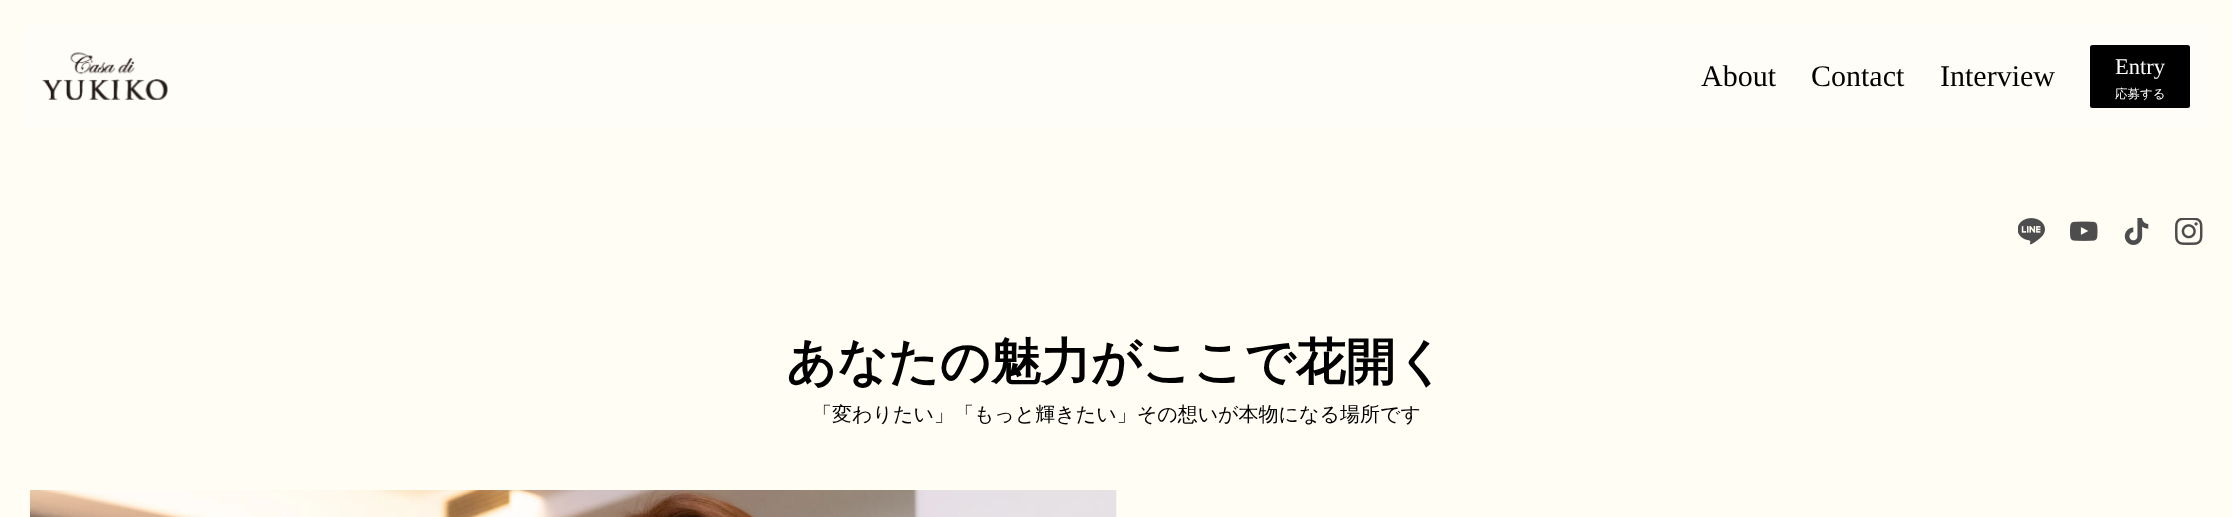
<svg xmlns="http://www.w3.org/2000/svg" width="2232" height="517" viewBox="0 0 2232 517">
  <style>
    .t1 { font: 30px Liberation Serif; fill: #000; }
    .t2 { font: 22.5px Liberation Serif; fill: #fff; }
    .t3 { font: 500 12.5px WenQuanYi Zen Hei; fill: #fff; }
    .t4 { font: bold 50px WenQuanYi Zen Hei; fill: #000; }
    .t5 { font: 500 20px WenQuanYi Zen Hei; fill: #000; }
  </style>
  <rect width="100%" height="100%" fill="#fffdf4"/>
  <rect x="23" y="25" width="2187" height="103" fill="#fffdf7"/>
  <image x="42" y="52" width="126" height="48" href="images/1.png"/>
  <text x="1701" y="86" class="t1">About</text>
  <text x="1811" y="86" class="t1">Contact</text>
  <text x="1940" y="86" class="t1">Interview</text>
  <rect x="2090" y="45" width="100" height="63" rx="2.5" fill="#000"/>
  <text x="2115" y="74" class="t2">Entry</text>
  <text x="2115" y="98" class="t3">応募する</text>
  <image x="2018" y="218" width="27" height="27" href="images/2.png"/>
  <image x="2070" y="221" width="28" height="20" href="images/3.png"/>
  <image x="2124" y="218" width="25" height="27" href="images/4.png"/>
  <image x="2175" y="218" width="28" height="27" href="images/5.png"/>
  <text x="786" y="379" class="t4">あなたの魅力がここで花開く</text>
  <text x="812" y="421" class="t5">「変わりたい」「もっと輝きたい」その想いが本物になる場所です</text>
  <image x="30" y="490" width="1087" height="27" href="images/6.png"/>
</svg>
